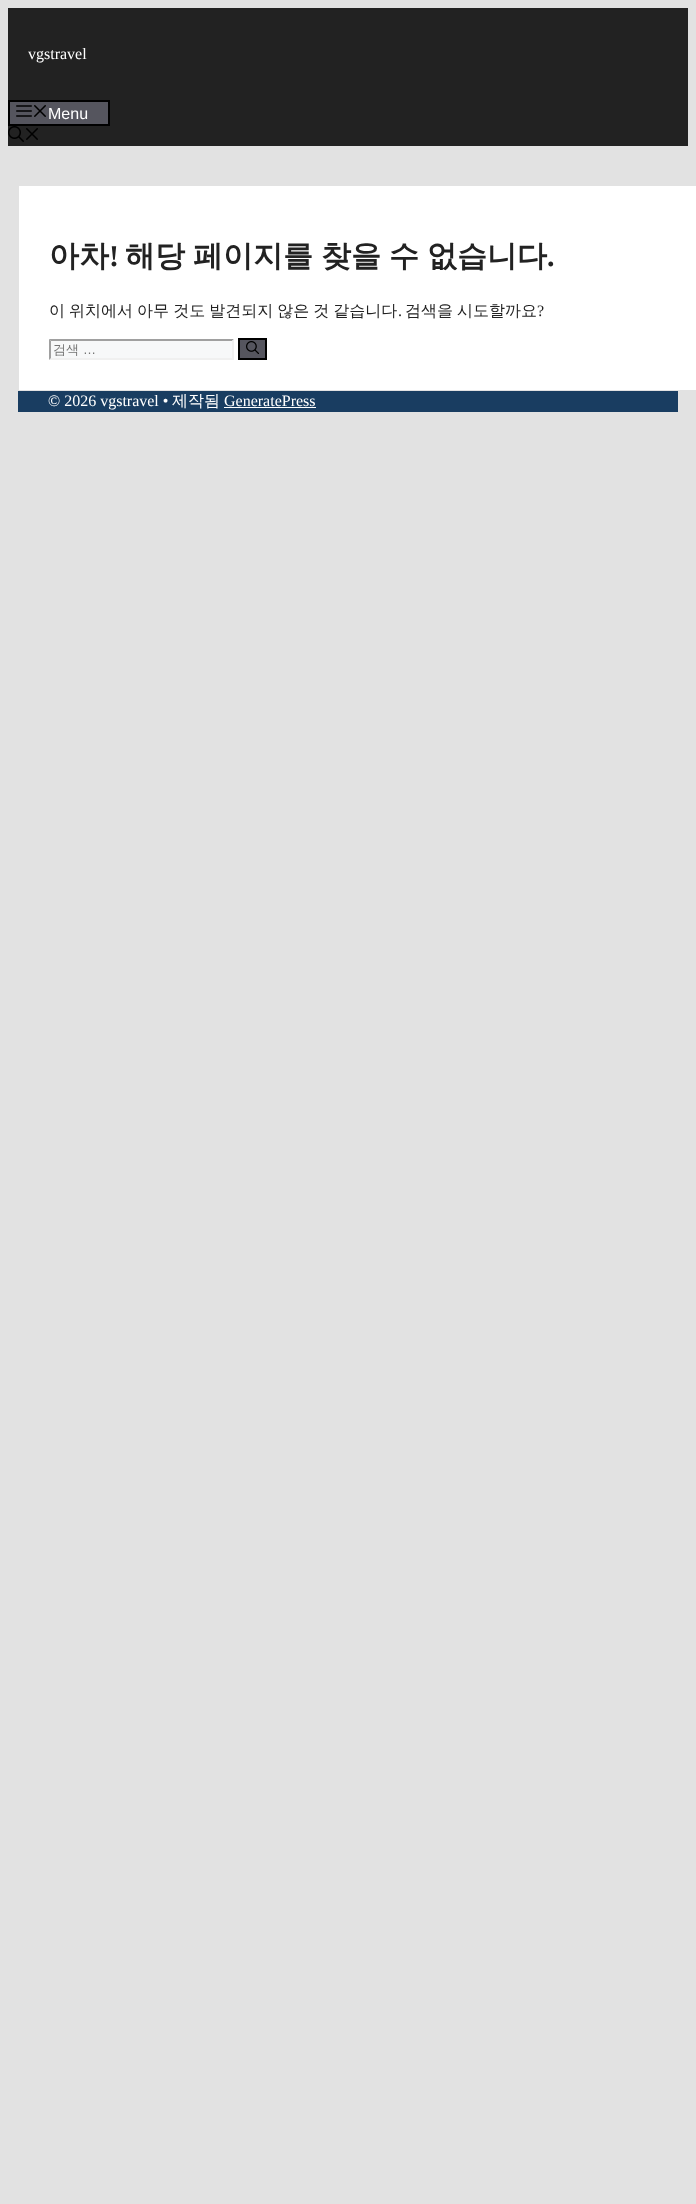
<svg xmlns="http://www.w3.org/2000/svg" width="696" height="2204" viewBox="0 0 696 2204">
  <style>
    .t1 { font: 16px Liberation Serif; fill: #fff; }
    .t2 { font: 16px Liberation Sans; fill: #fff; }
    .t3 { font: bold 30px WenQuanYi Zen Hei; fill: #222; }
    .t4 { font: bold 30px Liberation Serif; fill: #222; }
    .t5 { font: 500 16px WenQuanYi Zen Hei; fill: #222; }
    .t6 { font: 16px Liberation Serif; fill: #222; }
    .t7 { font: 500 13px WenQuanYi Zen Hei; fill: #757575; }
    .t8 { font: 13px Liberation Sans; fill: #757575; }
    .t9 { font: 500 16px WenQuanYi Zen Hei; fill: #fff; }
  </style>
  <rect width="100%" height="100%" fill="#e2e2e2"/>
  <rect x="8" y="8" width="680" height="138" fill="#222"/>
  <text x="28" y="59" class="t1">vgstravel</text>
  <rect x="9" y="101" width="100" height="24" fill="#55555e" stroke="#000" stroke-width="2"/>
  <image x="16" y="105" width="16" height="12" href="images/1.png"/>
  <image x="34" y="105" width="12" height="12" href="images/2.png"/>
  <text x="48" y="119" class="t2">Menu</text>
  <image x="8" y="126" width="16" height="16" href="images/3.png"/>
  <image x="26" y="128" width="12" height="12" href="images/4.png"/>
  <rect x="19" y="186" width="677" height="204" fill="#fff"/>
  <text x="49" y="266" class="t3">아차</text>
  <text x="109" y="266" class="t4">!</text>
  <text x="125" y="266" word-spacing="-1" class="t3">해당 페이지를 찾을 수 없습니다</text>
  <text x="547" y="266" class="t4">.</text>
  <text x="49" y="316" word-spacing="-0.75" class="t5">이 위치에서 아무 것도 발견되지 않은 것 같습니다</text>
  <text x="398" y="316" class="t6">.</text>
  <text x="405" y="316" word-spacing="-0.75" class="t5">검색을 시도할까요</text>
  <text x="537" y="316" class="t6">?</text>
  <rect x="49" y="339" width="185" height="21" fill="#f7f8f9"/>
  <path d="M49 339H234L232 341H51Z" fill="#a0a0a0"/>
  <path d="M234 339V360L232 358V341Z" fill="#f0f0f0"/>
  <path d="M234 360H49L51 358H232Z" fill="#f0f0f0"/>
  <path d="M49 360V339L51 341V358Z" fill="#a0a0a0"/>
  <text x="53" y="354" class="t7">검색</text>
  <text x="83" y="354" class="t8">…</text>
  <rect x="239" y="339" width="27" height="20" fill="#55555e" stroke="#000" stroke-width="2"/>
  <image x="246" y="341" width="13" height="13" href="images/5.png"/>
  <rect x="18" y="391" width="660" height="21" fill="#193d61"/>
  <text x="48" y="406" class="t1">© 2026 vgstravel •</text>
  <text x="172" y="406" class="t9">제작됨</text>
  <text x="224" y="406" class="t1">GeneratePress</text>
  <rect x="224" y="407" width="92" height="1" fill="#fff"/>
</svg>
